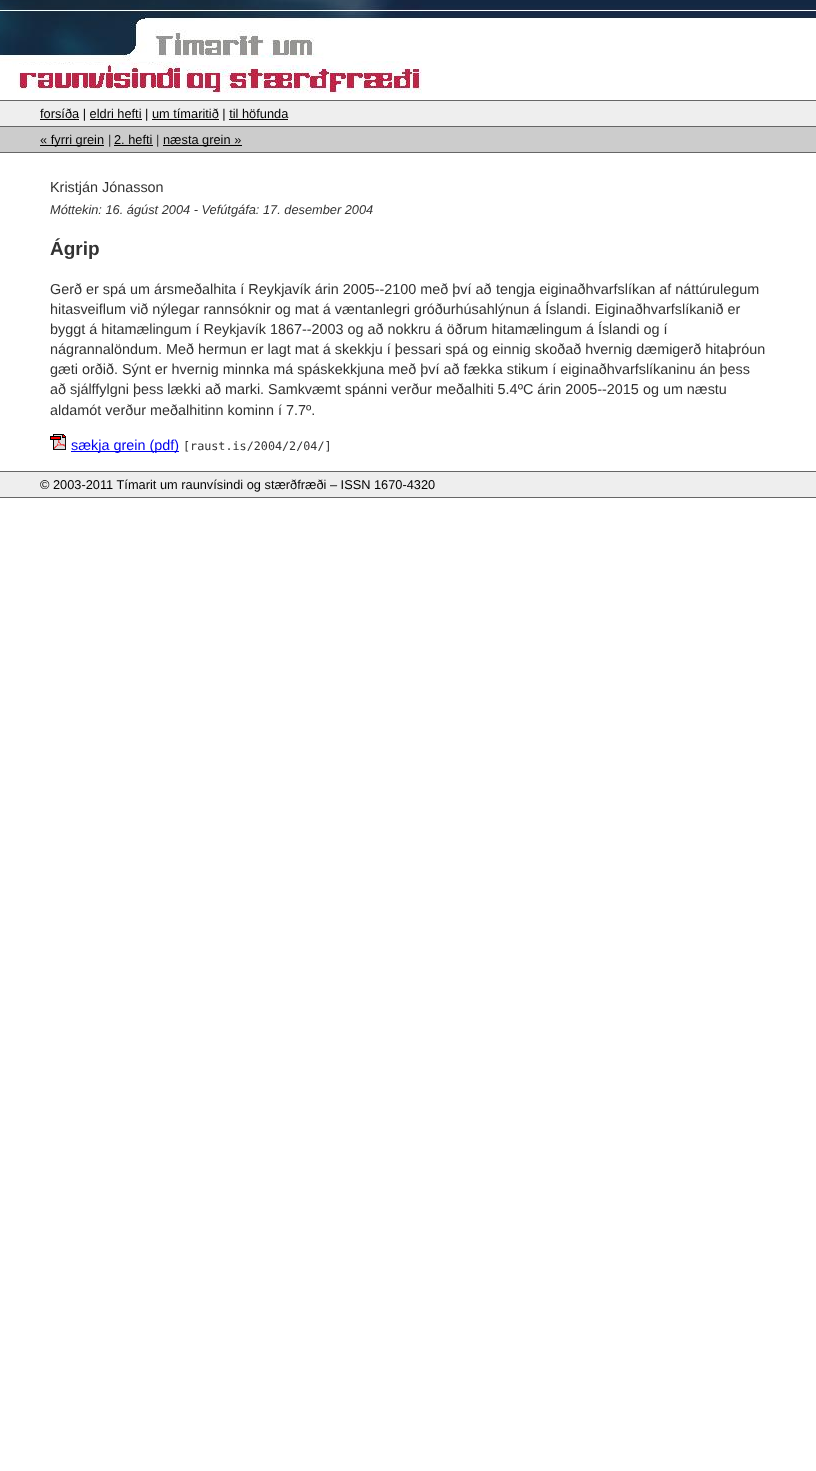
<svg xmlns="http://www.w3.org/2000/svg" width="816" height="1471" viewBox="0 0 816 1471">
  <style>
    .t1 { font: 12.8px Liberation Sans; fill: #000; }
    .t2 { font: 12.8px Liberation Sans; fill: #333; }
    .t3 { font: 14.4px Liberation Sans; fill: #333; }
    .t4 { font: italic 12.8px Liberation Sans; fill: #333; }
    .t5 { font: bold 19px Liberation Sans; fill: #333; }
    .t6 { font: 14.4px Liberation Sans; fill: #00e; }
    .t7 { font: 11.75px DejaVu Sans Mono; fill: #333; }
  </style>
  <rect width="100%" height="100%" fill="#fff"/>
  <image x="422" y="0" width="394" height="19" href="images/1.png"/>
  <image x="0" y="0" width="422" height="94" href="images/2.png"/>
  <rect x="0" y="101" width="816" height="25" fill="#eee"/>
  <rect x="0" y="100" width="816" height="1" fill="#666"/>
  <rect x="0" y="126" width="816" height="1" fill="#666"/>
  <rect x="40" y="119" width="39" height="1" fill="#000"/>
  <text x="40" y="118" class="t1">forsíða | eldri hefti | um tímaritið | til höfunda</text>
  <rect x="90" y="119" width="52" height="1" fill="#000"/>
  <rect x="152" y="119" width="67" height="1" fill="#000"/>
  <rect x="229" y="119" width="59" height="1" fill="#000"/>
  <rect x="0" y="127" width="816" height="25" fill="#ccc"/>
  <rect x="0" y="152" width="816" height="1" fill="#666"/>
  <rect x="40" y="145" width="64" height="1" fill="#000"/>
  <text x="40" y="144" class="t1">« fyrri grein</text>
  <text x="108" y="144" class="t2">|</text>
  <text x="114" y="144" class="t1">2. hefti</text>
  <rect x="114" y="145" width="39" height="1" fill="#000"/>
  <text x="156" y="144" class="t2">|</text>
  <rect x="163" y="145" width="79" height="1" fill="#000"/>
  <text x="163" y="144" class="t1">næsta grein »</text>
  <text x="50" y="192" class="t3">Kristján Jónasson</text>
  <text x="50" y="214" class="t4">Móttekin: 16. ágúst 2004 - Vefútgáfa: 17. desember 2004</text>
  <text x="50" y="255" class="t5">Ágrip</text>
  <text x="50" y="294" class="t3">Gerð er spá um ársmeðalhita í Reykjavík árin 2005--2100 með því að</text>
  <text x="496" y="294" class="t3">tengja eiginaðhvarfslíkan af náttúrulegum</text>
  <text x="50" y="314" class="t3">hitasveiflum við nýlegar rannsóknir og mat á væntanlegri gróðurhúsahlýnun á Íslandi. Eiginaðhvarfslíkanið er</text>
  <text x="50" y="334" class="t3">byggt á hitamælingum í Reykjavík 1867--2003 og að nokkru á öðrum hitamælingum á Íslandi og í</text>
  <text x="50" y="354" class="t3">nágrannalöndum. Með hermun er lagt mat á skekkju í þessari spá og einnig skoðað hvernig dæmigerð hitaþróun</text>
  <text x="50" y="374" class="t3">gæti orðið. Sýnt er hvernig minnka má spáskekkjuna með því að fækka stikum í eiginaðhvarfslíkaninu án þess</text>
  <text x="50" y="394" class="t3">að sjálffylgni þess lækki að marki. Samkvæmt spánni verður meðalhiti 5.4ºC árin 2005--2015 og um næstu</text>
  <text x="50" y="415" class="t3">aldamót verður meðalhitinn kominn í 7.7º.</text>
  <image x="50" y="434" width="16" height="16" href="images/3.png"/>
  <rect x="71" y="451" width="108" height="1" fill="#00e"/>
  <text x="71" y="450" class="t6">sækja grein (pdf)</text>
  <text x="183" y="450" class="t7">[raust.is/2004/2/04/]</text>
  <rect x="0" y="472" width="816" height="25" fill="#eee"/>
  <rect x="0" y="471" width="816" height="1" fill="#666"/>
  <rect x="0" y="497" width="816" height="1" fill="#666"/>
  <text x="40" y="489" class="t1">© 2003-2011 Tímarit um raunvísindi og stærðfræði – ISSN 1670-4320</text>
</svg>
